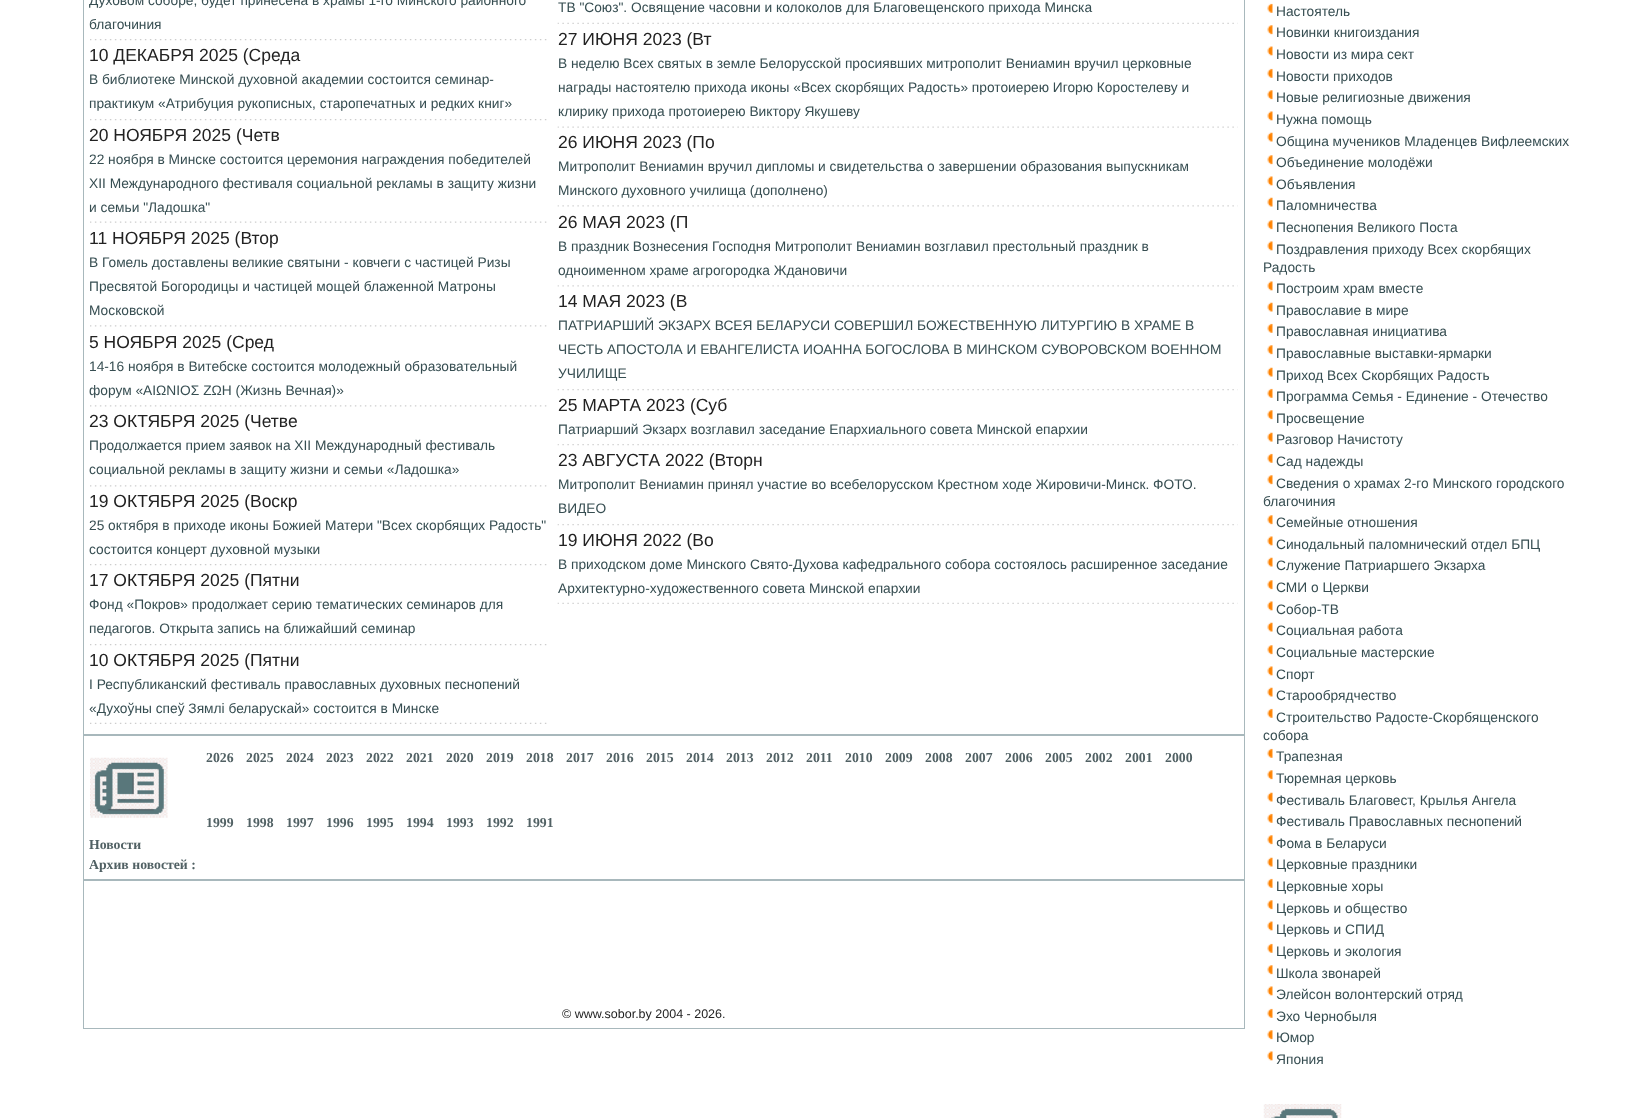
<svg xmlns="http://www.w3.org/2000/svg" width="1638" height="1118" viewBox="0 0 1638 1118">
  <style>
    .t1 { font: 13.75px Liberation Sans; fill: #374e52; }
    .t2 { font: 17.5px Liberation Sans; fill: #222; }
    .t3 { font: bold 13.75px Liberation Serif; fill: #516164; }
    .t4 { font: 12.5px Liberation Sans; fill: #222; }
  </style>
  <rect width="100%" height="100%" fill="#fff"/>
  <rect x="83.5" y="-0.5" width="1161" height="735" fill="none" stroke="#a8b8bc"/>
  <text x="89" y="5" class="t1">Духовом соборе, будет принесена в храмы 1-го Минского районного</text>
  <text x="89" y="29" class="t1">благочиния</text>
  <image x="90" y="39" width="457" height="2" href="images/1.png"/>
  <text x="89" y="61" class="t2">10 ДЕКАБРЯ 2025 (Среда</text>
  <text x="89" y="84" class="t1">В библиотеке Минской духовной академии состоится семинар-</text>
  <text x="89" y="108" class="t1">практикум «Атрибуция рукописных, старопечатных и редких книг»</text>
  <image x="90" y="119" width="457" height="2" href="images/1.png"/>
  <text x="89" y="141" class="t2">20 НОЯБРЯ 2025 (Четв</text>
  <text x="89" y="164" class="t1">22 ноября в Минске состоится церемония награждения победителей</text>
  <text x="89" y="188" class="t1">XII Международного фестиваля социальной рекламы в защиту жизни</text>
  <text x="89" y="212" class="t1">и семьи "Ладошка"</text>
  <image x="90" y="221" width="457" height="2" href="images/2.png"/>
  <text x="89" y="244" class="t2">11 НОЯБРЯ 2025 (Втор</text>
  <text x="89" y="267" class="t1">В Гомель доставлены великие святыни - ковчеги с частицей Ризы</text>
  <text x="89" y="291" class="t1">Пресвятой Богородицы и частицей мощей блаженной Матроны</text>
  <text x="89" y="315" class="t1">Московской</text>
  <image x="90" y="325" width="457" height="2" href="images/3.png"/>
  <text x="89" y="348" class="t2">5 НОЯБРЯ 2025 (Сред</text>
  <text x="89" y="371" class="t1">14-16 ноября в Витебске состоится молодежный образовательный</text>
  <text x="89" y="395" class="t1">форум «ΑΙΩΝΙΟΣ ΖΩΗ (Жизнь Вечная)»</text>
  <image x="90" y="405" width="457" height="2" href="images/3.png"/>
  <text x="89" y="427" class="t2">23 ОКТЯБРЯ 2025 (Четве</text>
  <text x="89" y="450" class="t1">Продолжается прием заявок на XII Международный фестиваль</text>
  <text x="89" y="474" class="t1">социальной рекламы в защиту жизни и семьи «Ладошка»</text>
  <image x="90" y="485" width="457" height="2" href="images/3.png"/>
  <text x="89" y="507" class="t2">19 ОКТЯБРЯ 2025 (Воскр</text>
  <text x="89" y="530" class="t1">25 октября в приходе иконы Божией Матери "Всех скорбящих Радость"</text>
  <text x="89" y="554" class="t1">состоится концерт духовной музыки</text>
  <image x="90" y="564" width="457" height="2" href="images/1.png"/>
  <text x="89" y="586" class="t2">17 ОКТЯБРЯ 2025 (Пятни</text>
  <text x="89" y="609" class="t1">Фонд «Покров» продолжает серию тематических семинаров для</text>
  <text x="89" y="633" class="t1">педагогов. Открыта запись на ближайший семинар</text>
  <image x="90" y="644" width="457" height="2" href="images/1.png"/>
  <text x="89" y="666" class="t2">10 ОКТЯБРЯ 2025 (Пятни</text>
  <text x="89" y="689" class="t1">I Республиканский фестиваль православных духовных песнопений</text>
  <text x="89" y="713" class="t1">«Духоўны спеў Зямлі беларускай» состоится в Минске</text>
  <image x="90" y="722" width="457" height="2" href="images/4.png"/>
  <text x="558" y="12" class="t1">ТВ "Союз". Освящение часовни и колоколов для Благовещенского прихода Минска</text>
  <image x="557" y="22" width="681" height="2" href="images/5.png"/>
  <text x="558" y="45" class="t2">27 ИЮНЯ 2023 (Вт</text>
  <text x="558" y="68" class="t1">В неделю Всех святых в земле Белорусской просиявших митрополит Вениамин вручил церковные</text>
  <text x="558" y="92" class="t1">награды настоятелю прихода иконы «Всех скорбящих Радость» протоиерею Игорю Коростелеву и</text>
  <text x="558" y="116" class="t1">клирику прихода протоиерею Виктору Якушеву</text>
  <image x="557" y="126" width="681" height="2" href="images/6.png"/>
  <text x="558" y="148" class="t2">26 ИЮНЯ 2023 (По</text>
  <text x="558" y="171" class="t1">Митрополит Вениамин вручил дипломы и свидетельства о завершении образования выпускникам</text>
  <text x="558" y="195" class="t1">Минского духовного училища (дополнено)</text>
  <image x="557" y="205" width="681" height="2" href="images/7.png"/>
  <text x="558" y="228" class="t2">26 МАЯ 2023 (П</text>
  <text x="558" y="251" class="t1">В праздник Вознесения Господня Митрополит Вениамин возглавил престольный праздник в</text>
  <text x="558" y="275" class="t1">одноименном храме агрогородка Ждановичи</text>
  <image x="557" y="285" width="681" height="2" href="images/7.png"/>
  <text x="558" y="307" class="t2">14 МАЯ 2023 (В</text>
  <text x="558" y="330" class="t1">ПАТРИАРШИЙ ЭКЗАРХ ВСЕЯ БЕЛАРУСИ СОВЕРШИЛ БОЖЕСТВЕННУЮ ЛИТУРГИЮ В ХРАМЕ В</text>
  <text x="558" y="354" class="t1">ЧЕСТЬ АПОСТОЛА И ЕВАНГЕЛИСТА ИОАННА БОГОСЛОВА В МИНСКОМ СУВОРОВСКОМ ВОЕННОМ</text>
  <text x="558" y="378" class="t1">УЧИЛИЩЕ</text>
  <image x="557" y="389" width="681" height="2" href="images/8.png"/>
  <text x="558" y="411" class="t2">25 МАРТА 2023 (Суб</text>
  <text x="558" y="434" class="t1">Патриарший Экзарх возглавил заседание Епархиального совета Минской епархии</text>
  <image x="557" y="444" width="681" height="2" href="images/8.png"/>
  <text x="558" y="466" class="t2">23 АВГУСТА 2022 (Вторн</text>
  <text x="558" y="489" class="t1">Митрополит Вениамин принял участие во всебелорусском Крестном ходе Жировичи-Минск. ФОТО.</text>
  <text x="558" y="513" class="t1">ВИДЕО</text>
  <image x="557" y="524" width="681" height="2" href="images/8.png"/>
  <text x="558" y="546" class="t2">19 ИЮНЯ 2022 (Во</text>
  <text x="558" y="569" class="t1">В приходском доме Минского Свято-Духова кафедрального собора состоялось расширенное заседание</text>
  <text x="558" y="593" class="t1">Архитектурно-художественного совета Минской епархии</text>
  <image x="557" y="602" width="681" height="2" href="images/5.png"/>
  <rect x="83.5" y="735.5" width="1161" height="144" fill="none" stroke="#a8b8bc"/>
  <text x="206" y="762" class="t3">2026</text>
  <text x="246" y="762" class="t3">2025</text>
  <text x="286" y="762" class="t3">2024</text>
  <text x="326" y="762" class="t3">2023</text>
  <text x="366" y="762" class="t3">2022</text>
  <text x="406" y="762" class="t3">2021</text>
  <text x="446" y="762" class="t3">2020</text>
  <text x="486" y="762" class="t3">2019</text>
  <text x="526" y="762" class="t3">2018</text>
  <text x="566" y="762" class="t3">2017</text>
  <text x="606" y="762" class="t3">2016</text>
  <text x="646" y="762" class="t3">2015</text>
  <text x="686" y="762" class="t3">2014</text>
  <text x="726" y="762" class="t3">2013</text>
  <text x="766" y="762" class="t3">2012</text>
  <text x="806" y="762" class="t3">2011</text>
  <text x="845" y="762" class="t3">2010</text>
  <text x="885" y="762" class="t3">2009</text>
  <text x="925" y="762" class="t3">2008</text>
  <text x="965" y="762" class="t3">2007</text>
  <text x="1005" y="762" class="t3">2006</text>
  <text x="1045" y="762" class="t3">2005</text>
  <text x="1085" y="762" class="t3">2002</text>
  <text x="1125" y="762" class="t3">2001</text>
  <text x="1165" y="762" class="t3">2000</text>
  <text x="206" y="827" class="t3">1999</text>
  <text x="246" y="827" class="t3">1998</text>
  <text x="286" y="827" class="t3">1997</text>
  <text x="326" y="827" class="t3">1996</text>
  <text x="366" y="827" class="t3">1995</text>
  <text x="406" y="827" class="t3">1994</text>
  <text x="446" y="827" class="t3">1993</text>
  <text x="486" y="827" class="t3">1992</text>
  <text x="526" y="827" class="t3">1991</text>
  <image x="90" y="757" width="78" height="61" href="images/9.png"/>
  <text x="89" y="849" class="t3">Новости</text>
  <text x="89" y="869" class="t3">Архив новостей :</text>
  <rect x="83.5" y="880.5" width="1161" height="148" fill="none" stroke="#a8b8bc"/>
  <text x="562" y="1018" class="t4">© www.sobor.by 2004 - 2026.</text>
  <image x="1267" y="3" width="6" height="10" href="images/10.png"/>
  <text x="1276" y="16" class="t1">Настоятель</text>
  <image x="1267" y="25" width="6" height="10" href="images/11.png"/>
  <text x="1276" y="37" class="t1">Новинки книгоиздания</text>
  <image x="1267" y="46" width="6" height="10" href="images/12.png"/>
  <text x="1276" y="59" class="t1">Новости из мира сект</text>
  <image x="1267" y="68" width="6" height="10" href="images/10.png"/>
  <text x="1276" y="81" class="t1">Новости приходов</text>
  <image x="1267" y="90" width="6" height="10" href="images/11.png"/>
  <text x="1276" y="102" class="t1">Новые религиозные движения</text>
  <image x="1267" y="111" width="6" height="10" href="images/13.png"/>
  <text x="1276" y="124" class="t1">Нужна помощь</text>
  <image x="1267" y="132" width="6" height="10" href="images/14.png"/>
  <text x="1276" y="146" class="t1">Община мучеников Младенцев Вифлеемских</text>
  <image x="1267" y="155" width="6" height="10" href="images/11.png"/>
  <text x="1276" y="167" class="t1">Объединение молодёжи</text>
  <image x="1267" y="176" width="6" height="10" href="images/13.png"/>
  <text x="1276" y="189" class="t1">Объявления</text>
  <image x="1267" y="197" width="6" height="10" href="images/14.png"/>
  <text x="1276" y="210" class="t1">Паломничества</text>
  <image x="1267" y="220" width="6" height="10" href="images/11.png"/>
  <text x="1276" y="232" class="t1">Песнопения Великого Поста</text>
  <image x="1267" y="241" width="6" height="10" href="images/13.png"/>
  <text x="1276" y="254" class="t1">Поздравления приходу Всех скорбящих</text>
  <text x="1263" y="272" class="t1">Радость</text>
  <image x="1267" y="281" width="6" height="10" href="images/13.png"/>
  <text x="1276" y="293" class="t1">Построим храм вместе</text>
  <image x="1267" y="302" width="6" height="10" href="images/14.png"/>
  <text x="1276" y="315" class="t1">Православие в мире</text>
  <image x="1267" y="323" width="6" height="10" href="images/10.png"/>
  <text x="1276" y="336" class="t1">Православная инициатива</text>
  <image x="1267" y="345" width="6" height="10" href="images/11.png"/>
  <text x="1276" y="358" class="t1">Православные выставки-ярмарки</text>
  <image x="1267" y="367" width="6" height="10" href="images/14.png"/>
  <text x="1276" y="380" class="t1">Приход Всех Скорбящих Радость</text>
  <image x="1267" y="388" width="6" height="10" href="images/10.png"/>
  <text x="1276" y="401" class="t1">Программа Семья - Единение - Отечество</text>
  <image x="1267" y="410" width="6" height="10" href="images/11.png"/>
  <text x="1276" y="423" class="t1">Просвещение</text>
  <image x="1267" y="432" width="6" height="10" href="images/15.png"/>
  <text x="1276" y="444" class="t1">Разговор Начистоту</text>
  <image x="1267" y="453" width="6" height="10" href="images/10.png"/>
  <text x="1276" y="466" class="t1">Сад надежды</text>
  <image x="1267" y="475" width="6" height="10" href="images/11.png"/>
  <text x="1276" y="488" class="t1">Сведения о храмах 2-го Минского городского</text>
  <text x="1263" y="506" class="t1">благочиния</text>
  <image x="1267" y="515" width="6" height="10" href="images/11.png"/>
  <text x="1276" y="527" class="t1">Семейные отношения</text>
  <image x="1267" y="536" width="6" height="10" href="images/13.png"/>
  <text x="1276" y="549" class="t1">Синодальный паломнический отдел БПЦ</text>
  <image x="1267" y="557" width="6" height="10" href="images/14.png"/>
  <text x="1276" y="570" class="t1">Служение Патриаршего Экзарха</text>
  <image x="1267" y="580" width="6" height="10" href="images/11.png"/>
  <text x="1276" y="592" class="t1">СМИ о Церкви</text>
  <image x="1267" y="601" width="6" height="10" href="images/13.png"/>
  <text x="1276" y="614" class="t1">Собор-ТВ</text>
  <image x="1267" y="622" width="6" height="10" href="images/14.png"/>
  <text x="1276" y="635" class="t1">Социальная работа</text>
  <image x="1267" y="645" width="6" height="10" href="images/11.png"/>
  <text x="1276" y="657" class="t1">Социальные мастерские</text>
  <image x="1267" y="666" width="6" height="10" href="images/13.png"/>
  <text x="1276" y="679" class="t1">Спорт</text>
  <image x="1267" y="687" width="6" height="10" href="images/14.png"/>
  <text x="1276" y="700" class="t1">Старообрядчество</text>
  <image x="1267" y="708" width="6" height="10" href="images/10.png"/>
  <text x="1276" y="722" class="t1">Строительство Радосте-Скорбященского</text>
  <text x="1263" y="740" class="t1">собора</text>
  <image x="1267" y="748" width="6" height="10" href="images/10.png"/>
  <text x="1276" y="761" class="t1">Трапезная</text>
  <image x="1267" y="770" width="6" height="10" href="images/11.png"/>
  <text x="1276" y="783" class="t1">Тюремная церковь</text>
  <image x="1267" y="792" width="6" height="10" href="images/14.png"/>
  <text x="1276" y="805" class="t1">Фестиваль Благовест, Крылья Ангела</text>
  <image x="1267" y="813" width="6" height="10" href="images/10.png"/>
  <text x="1276" y="826" class="t1">Фестиваль Православных песнопений</text>
  <image x="1267" y="835" width="6" height="10" href="images/11.png"/>
  <text x="1276" y="848" class="t1">Фома в Беларуси</text>
  <image x="1267" y="857" width="6" height="10" href="images/14.png"/>
  <text x="1276" y="869" class="t1">Церковные праздники</text>
  <image x="1267" y="878" width="6" height="10" href="images/10.png"/>
  <text x="1276" y="891" class="t1">Церковные хоры</text>
  <image x="1267" y="900" width="6" height="10" href="images/11.png"/>
  <text x="1276" y="913" class="t1">Церковь и общество</text>
  <image x="1267" y="921" width="6" height="10" href="images/12.png"/>
  <text x="1276" y="934" class="t1">Церковь и СПИД</text>
  <image x="1267" y="943" width="6" height="10" href="images/10.png"/>
  <text x="1276" y="956" class="t1">Церковь и экология</text>
  <image x="1267" y="965" width="6" height="10" href="images/11.png"/>
  <text x="1276" y="978" class="t1">Школа звонарей</text>
  <image x="1267" y="986" width="6" height="10" href="images/13.png"/>
  <text x="1276" y="999" class="t1">Элейсон волонтерский отряд</text>
  <image x="1267" y="1008" width="6" height="10" href="images/10.png"/>
  <text x="1276" y="1021" class="t1">Эхо Чернобыля</text>
  <image x="1267" y="1030" width="6" height="10" href="images/11.png"/>
  <text x="1276" y="1042" class="t1">Юмор</text>
  <image x="1267" y="1051" width="6" height="10" href="images/13.png"/>
  <text x="1276" y="1064" class="t1">Япония</text>
  <image x="1263" y="1104" width="79" height="14" href="images/16.png"/>
</svg>
